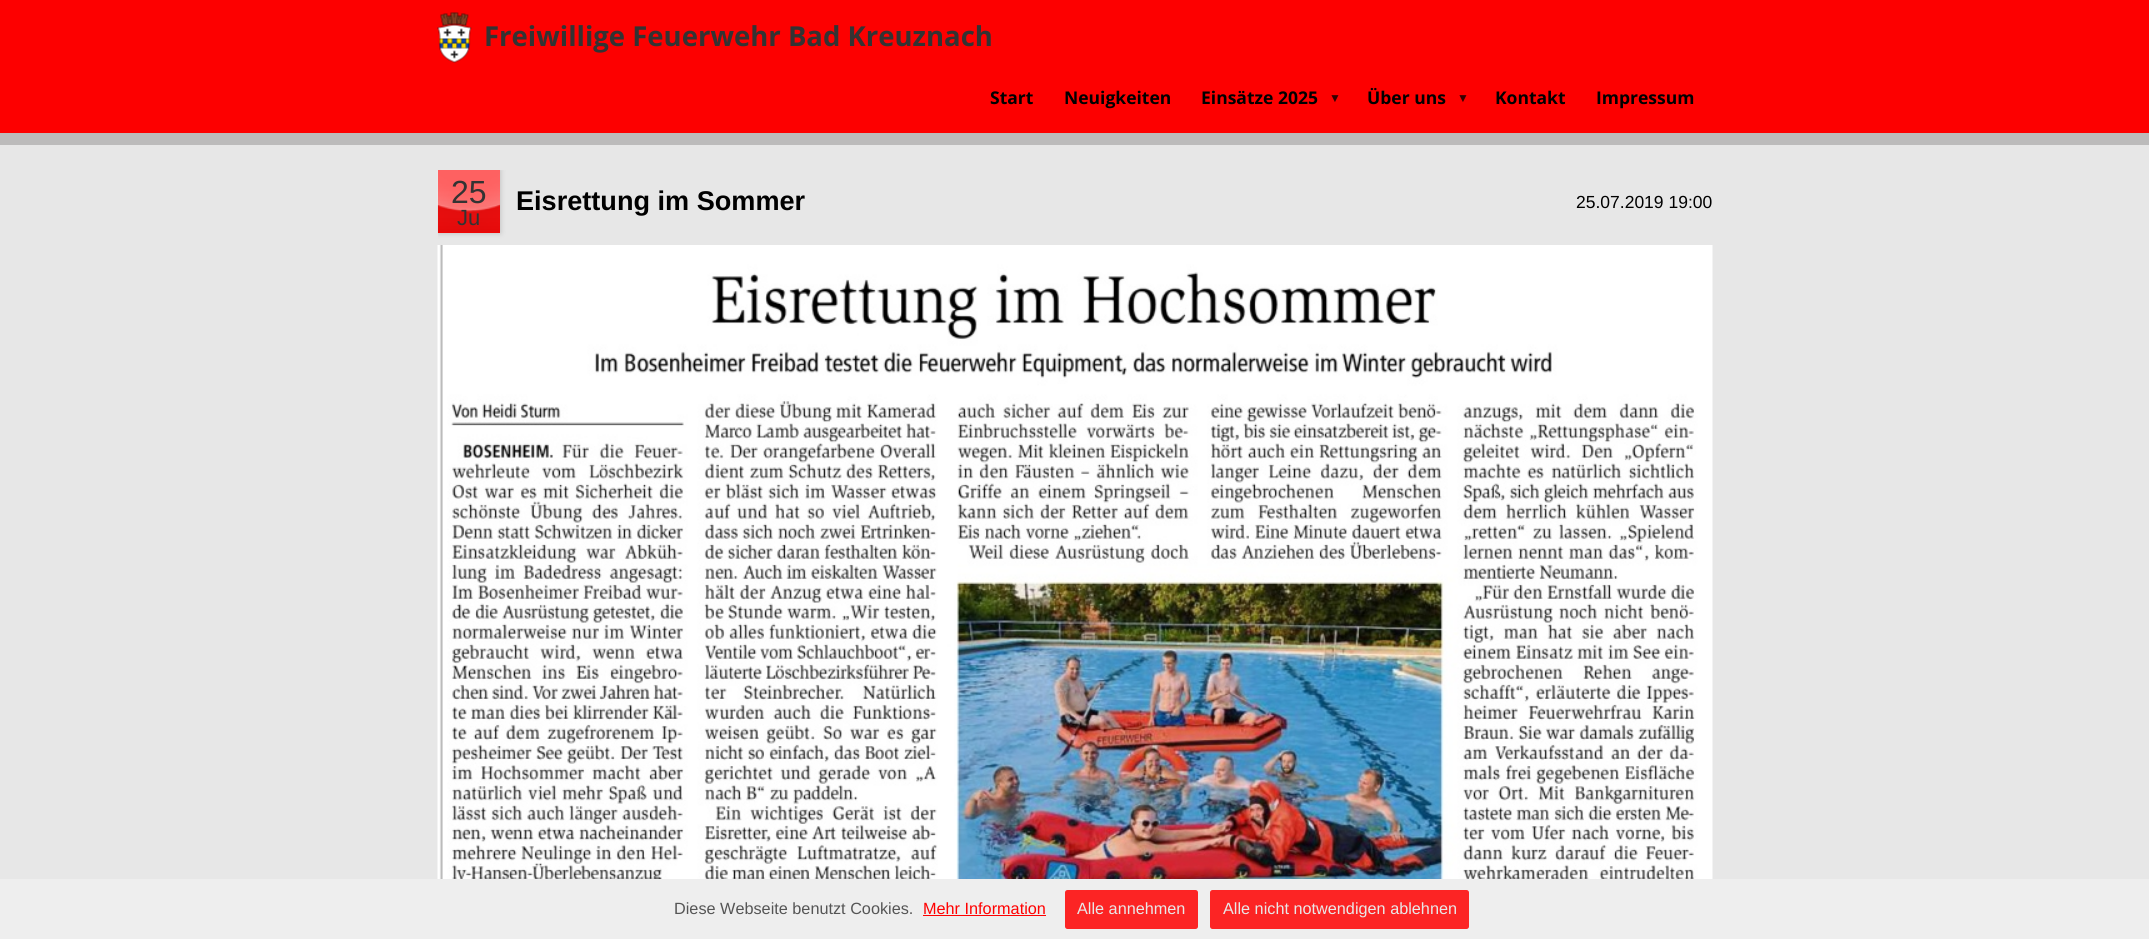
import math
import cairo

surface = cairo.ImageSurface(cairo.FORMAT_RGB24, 2149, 939)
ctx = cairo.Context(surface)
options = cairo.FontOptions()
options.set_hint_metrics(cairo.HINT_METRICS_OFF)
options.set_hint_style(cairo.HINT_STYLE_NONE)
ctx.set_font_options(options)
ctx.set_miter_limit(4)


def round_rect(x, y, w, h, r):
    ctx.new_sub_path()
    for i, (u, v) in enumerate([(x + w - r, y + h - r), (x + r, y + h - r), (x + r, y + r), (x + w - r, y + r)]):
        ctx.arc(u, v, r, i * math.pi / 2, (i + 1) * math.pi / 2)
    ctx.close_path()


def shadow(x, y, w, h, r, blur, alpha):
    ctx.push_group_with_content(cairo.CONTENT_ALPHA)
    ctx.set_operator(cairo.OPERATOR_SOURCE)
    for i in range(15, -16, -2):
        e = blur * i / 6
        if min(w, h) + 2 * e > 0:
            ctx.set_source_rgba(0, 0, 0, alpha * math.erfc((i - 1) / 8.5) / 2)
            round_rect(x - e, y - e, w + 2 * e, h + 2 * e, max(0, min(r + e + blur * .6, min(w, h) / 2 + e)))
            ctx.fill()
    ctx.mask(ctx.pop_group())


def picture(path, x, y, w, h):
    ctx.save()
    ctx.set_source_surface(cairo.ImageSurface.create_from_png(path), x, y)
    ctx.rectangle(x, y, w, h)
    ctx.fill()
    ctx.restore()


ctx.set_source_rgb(0.906, 0.906, 0.906)
ctx.paint()
ctx.set_source_rgb(0.992, 0, 0)
ctx.rectangle(0, 0, 2149, 133)
ctx.fill()
picture("img1.png", 437, 12, 35, 51)
ctx.select_font_face("Open Sans", cairo.FONT_SLANT_NORMAL, cairo.FONT_WEIGHT_BOLD)
ctx.set_font_size(27.5)
ctx.set_source_rgb(0.2, 0.2, 0.2)
ctx.move_to(484, 46)
ctx.show_text("Freiwillige Feuerwehr Bad Kreuznach")
ctx.set_font_size(17.5)
ctx.set_source_rgb(0, 0, 0)
ctx.move_to(990, 104)
ctx.show_text("Start")
ctx.move_to(1064, 104)
ctx.show_text("Neuigkeiten")
ctx.move_to(1201, 104)
ctx.show_text("Einsätze 2025")
ctx.select_font_face("Liberation Sans", cairo.FONT_SLANT_NORMAL, cairo.FONT_WEIGHT_BOLD)
ctx.set_font_size(12)
ctx.set_source_rgb(0.2, 0, 0)
ctx.move_to(1329, 102)
ctx.show_text("▼")
ctx.select_font_face("Open Sans", cairo.FONT_SLANT_NORMAL, cairo.FONT_WEIGHT_BOLD)
ctx.set_font_size(17.5)
ctx.set_source_rgb(0, 0, 0)
ctx.move_to(1367, 104)
ctx.show_text("Über uns")
ctx.select_font_face("Liberation Sans", cairo.FONT_SLANT_NORMAL, cairo.FONT_WEIGHT_BOLD)
ctx.set_font_size(12)
ctx.set_source_rgb(0.2, 0, 0)
ctx.move_to(1457, 102)
ctx.show_text("▼")
ctx.select_font_face("Open Sans", cairo.FONT_SLANT_NORMAL, cairo.FONT_WEIGHT_BOLD)
ctx.set_font_size(17.5)
ctx.set_source_rgb(0, 0, 0)
ctx.move_to(1495, 104)
ctx.show_text("Kontakt")
ctx.move_to(1596, 104)
ctx.show_text("Impressum")
ctx.set_source_rgb(0.737, 0.733, 0.733)
ctx.rectangle(0, 133, 2149, 12)
ctx.fill()
ctx.save()
ctx.rectangle(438, 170, 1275, 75)
ctx.clip()
ctx.set_source_rgb(0, 0, 0)
shadow(438, 170, 62, 63, 0, 3, 0.2)
ctx.restore()
ctx.set_source_rgb(0.992, 0, 0)
ctx.rectangle(438, 170, 62, 63)
ctx.fill()
picture("img2.png", 437, 170, 63, 63)
ctx.select_font_face("Liberation Sans")
ctx.set_font_size(32)
ctx.set_source_rgb(0.2, 0.2, 0.2)
ctx.move_to(451, 203)
ctx.show_text("25")
ctx.set_font_size(22)
ctx.move_to(457, 225)
ctx.show_text("Ju")
ctx.select_font_face("Liberation Sans", cairo.FONT_SLANT_NORMAL, cairo.FONT_WEIGHT_BOLD)
ctx.set_font_size(27.1)
ctx.set_source_rgb(0, 0, 0)
ctx.move_to(516, 210)
ctx.show_text("Eisrettung im Sommer")
ctx.select_font_face("Liberation Sans")
ctx.set_font_size(17.5)
ctx.move_to(1576, 208)
ctx.show_text("25.07.2019 19:00")
picture("img3.png", 437, 245, 1276, 634)
ctx.set_source_rgb(0.933, 0.933, 0.933)
ctx.rectangle(0, 879, 2149, 60)
ctx.fill()
ctx.set_font_size(16.25)
ctx.set_source_rgb(0.333, 0.333, 0.333)
ctx.move_to(674, 914)
ctx.show_text("Diese Webseite benutzt Cookies.")
ctx.set_source_rgb(1, 0, 0)
ctx.move_to(923, 914)
ctx.show_text("Mehr Information")
ctx.rectangle(923, 915, 123, 1)
ctx.fill()
ctx.set_source_rgb(0.988, 0.141, 0.141)
round_rect(1065, 890, 133, 39, 2.5)
ctx.fill()
ctx.set_source_rgb(0.91, 0.91, 0.91)
ctx.move_to(1077, 914)
ctx.show_text("Alle annehmen")
ctx.set_source_rgb(0.988, 0.141, 0.141)
round_rect(1210, 890, 259, 39, 2.5)
ctx.fill()
ctx.set_source_rgb(0.91, 0.91, 0.91)
ctx.move_to(1223, 914)
ctx.show_text("Alle nicht notwendigen ablehnen")
surface.write_to_png("page.png")
